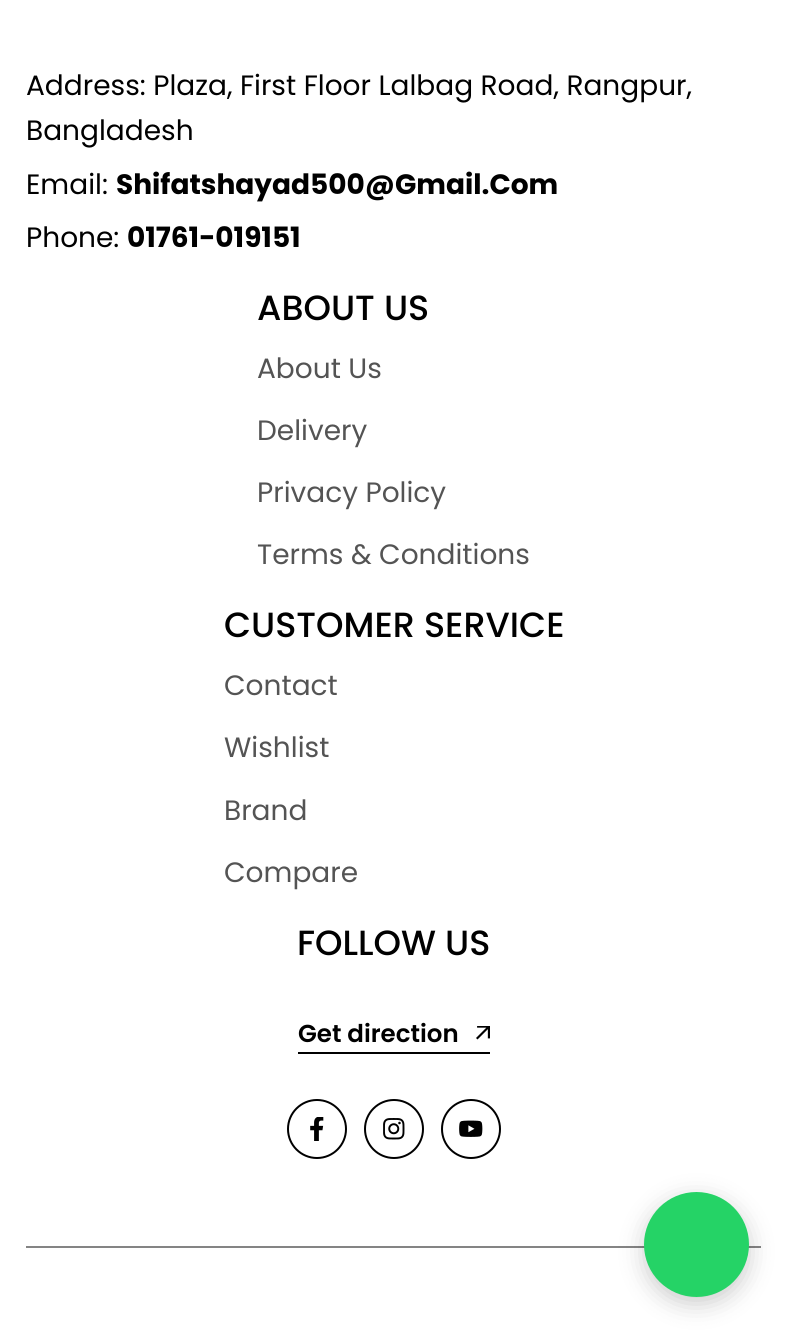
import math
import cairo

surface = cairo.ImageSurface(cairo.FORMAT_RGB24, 787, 1334)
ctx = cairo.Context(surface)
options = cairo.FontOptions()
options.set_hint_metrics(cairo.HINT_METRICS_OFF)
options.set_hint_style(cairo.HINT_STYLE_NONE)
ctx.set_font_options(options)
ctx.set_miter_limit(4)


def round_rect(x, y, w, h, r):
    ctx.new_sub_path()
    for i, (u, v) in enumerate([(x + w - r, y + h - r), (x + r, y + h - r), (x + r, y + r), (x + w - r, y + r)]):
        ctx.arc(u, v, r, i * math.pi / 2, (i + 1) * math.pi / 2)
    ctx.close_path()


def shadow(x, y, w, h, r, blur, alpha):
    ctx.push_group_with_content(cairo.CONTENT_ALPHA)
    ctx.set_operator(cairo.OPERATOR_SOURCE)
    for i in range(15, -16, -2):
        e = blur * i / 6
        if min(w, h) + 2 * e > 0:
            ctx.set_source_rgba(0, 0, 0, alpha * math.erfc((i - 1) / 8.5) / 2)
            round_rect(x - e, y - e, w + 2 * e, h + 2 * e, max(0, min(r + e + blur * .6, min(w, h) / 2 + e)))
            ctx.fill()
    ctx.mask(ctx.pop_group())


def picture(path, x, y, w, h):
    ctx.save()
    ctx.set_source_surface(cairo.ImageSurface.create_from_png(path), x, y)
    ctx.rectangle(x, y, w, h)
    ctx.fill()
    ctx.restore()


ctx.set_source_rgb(1, 1, 1)
ctx.paint()
ctx.select_font_face("Poppins")
ctx.set_font_size(28)
ctx.set_source_rgb(0, 0, 0)
ctx.move_to(26, 95)
ctx.show_text("Address: Plaza, First Floor Lalbag Road, Rangpur,")
ctx.move_to(26, 140)
ctx.show_text("Bangladesh")
ctx.move_to(26, 194)
ctx.show_text("Email:")
ctx.select_font_face("Poppins", cairo.FONT_SLANT_NORMAL, cairo.FONT_WEIGHT_BOLD)
ctx.move_to(116, 194)
ctx.show_text("Shifatshayad500@Gmail.Com")
ctx.select_font_face("Poppins")
ctx.move_to(26, 247)
ctx.show_text("Phone:")
ctx.select_font_face("Poppins", cairo.FONT_SLANT_NORMAL, cairo.FONT_WEIGHT_BOLD)
ctx.move_to(127, 247)
ctx.show_text("01761-019151")
ctx.select_font_face("Poppins Medium")
ctx.set_font_size(35)
ctx.move_to(257, 320)
ctx.show_text("ABOUT US")
ctx.select_font_face("Poppins")
ctx.set_font_size(28)
ctx.set_source_rgb(0.329, 0.329, 0.329)
ctx.move_to(257, 378)
ctx.show_text("About Us")
ctx.move_to(257, 440)
ctx.show_text("Delivery")
ctx.move_to(257, 502)
ctx.show_text("Privacy Policy")
ctx.move_to(257, 564)
ctx.show_text("Terms & Conditions")
ctx.select_font_face("Poppins Medium")
ctx.set_font_size(35)
ctx.set_source_rgb(0, 0, 0)
ctx.move_to(224, 637)
ctx.show_text("CUSTOMER SERVICE")
ctx.select_font_face("Poppins")
ctx.set_font_size(28)
ctx.set_source_rgb(0.329, 0.329, 0.329)
ctx.move_to(224, 695)
ctx.show_text("Contact")
ctx.move_to(224, 757)
ctx.show_text("Wishlist")
ctx.move_to(224, 820)
ctx.show_text("Brand")
ctx.move_to(224, 882)
ctx.show_text("Compare")
ctx.select_font_face("Poppins Medium")
ctx.set_font_size(35)
ctx.set_source_rgb(0, 0, 0)
ctx.move_to(297, 955)
ctx.show_text("FOLLOW US")
ctx.rectangle(298, 1052, 192, 2)
ctx.fill()
ctx.select_font_face("Poppins SemiBold")
ctx.set_font_size(24.5)
ctx.move_to(298, 1042)
ctx.show_text("Get direction")
picture("img1.png", 476, 1026, 14, 14)
ctx.arc(317, 1129, 29, 0, 2 * math.pi)
ctx.stroke()
picture("img2.png", 310, 1117, 14, 24)
ctx.arc(394, 1129, 29, 0, 2 * math.pi)
ctx.stroke()
picture("img3.png", 383, 1118, 22, 22)
ctx.arc(471, 1129, 29, 0, 2 * math.pi)
ctx.stroke()
picture("img4.png", 459, 1120, 24, 17)
ctx.set_source_rgb(0.518, 0.518, 0.518)
ctx.rectangle(26, 1246, 735, 2)
ctx.fill()
ctx.set_source_rgb(0, 0, 0)
shadow(644, 1199, 105, 105, 52.5, 12, 0.2)
ctx.set_source_rgb(0.145, 0.827, 0.4)
ctx.arc(696.5, 1244.5, 52.5, 0, 2 * math.pi)
ctx.fill()
surface.write_to_png("page.png")
